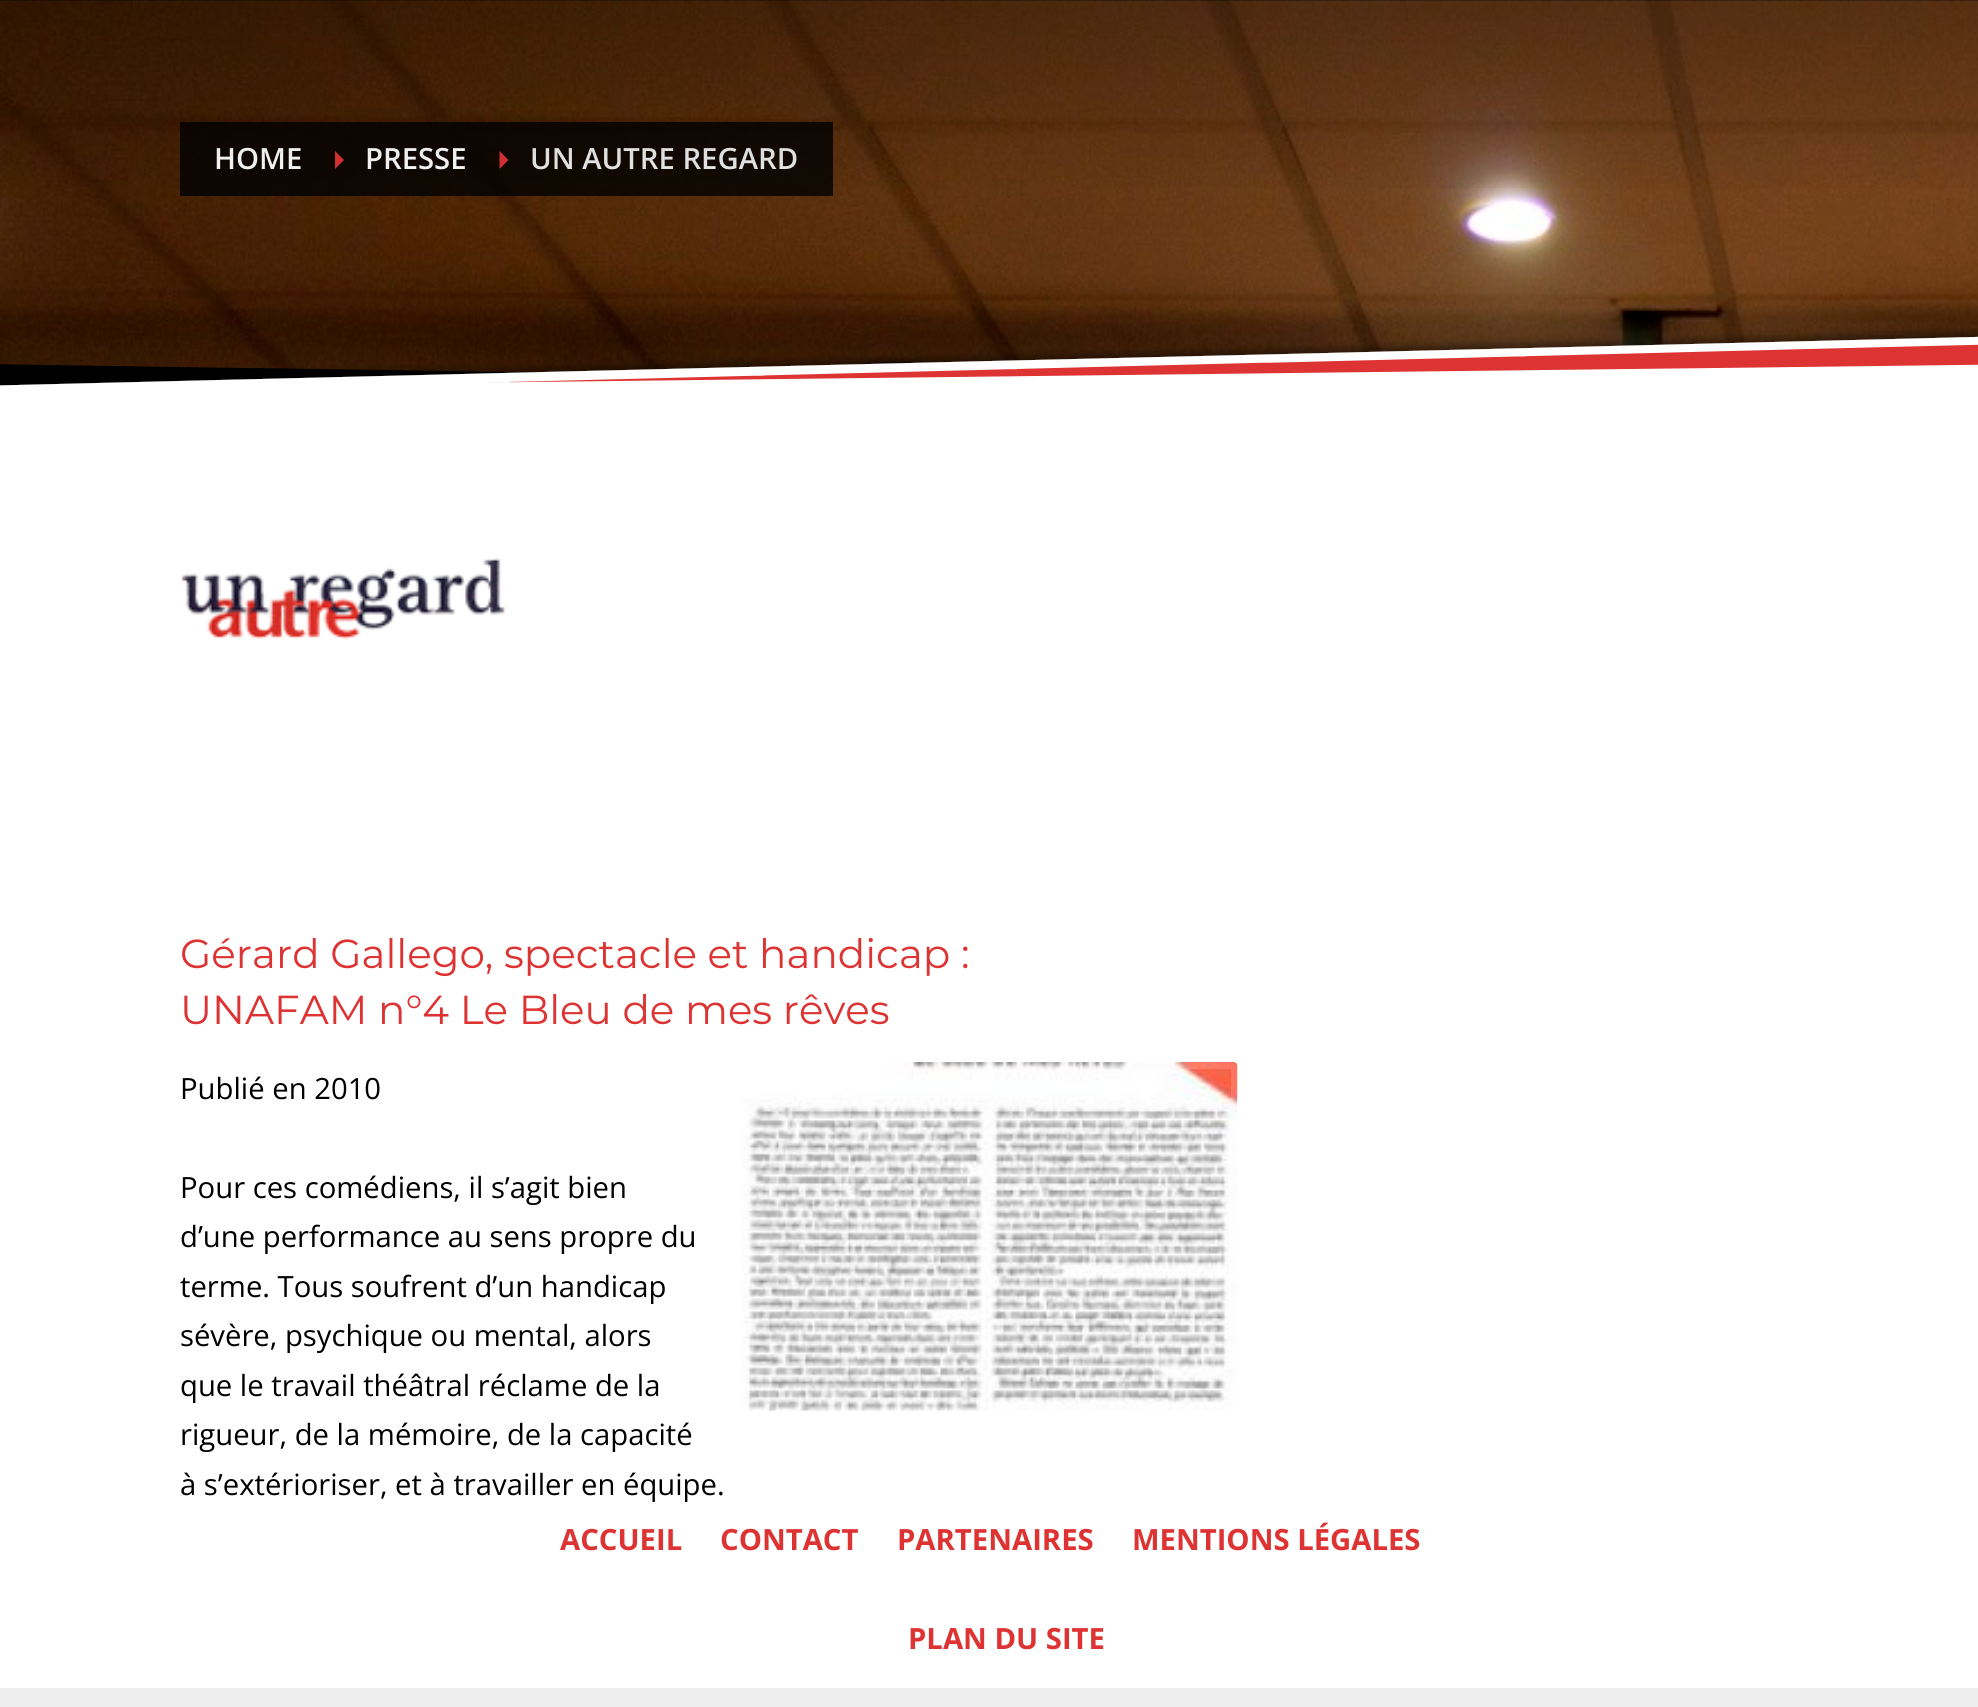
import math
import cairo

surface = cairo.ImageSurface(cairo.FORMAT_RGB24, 1978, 1707)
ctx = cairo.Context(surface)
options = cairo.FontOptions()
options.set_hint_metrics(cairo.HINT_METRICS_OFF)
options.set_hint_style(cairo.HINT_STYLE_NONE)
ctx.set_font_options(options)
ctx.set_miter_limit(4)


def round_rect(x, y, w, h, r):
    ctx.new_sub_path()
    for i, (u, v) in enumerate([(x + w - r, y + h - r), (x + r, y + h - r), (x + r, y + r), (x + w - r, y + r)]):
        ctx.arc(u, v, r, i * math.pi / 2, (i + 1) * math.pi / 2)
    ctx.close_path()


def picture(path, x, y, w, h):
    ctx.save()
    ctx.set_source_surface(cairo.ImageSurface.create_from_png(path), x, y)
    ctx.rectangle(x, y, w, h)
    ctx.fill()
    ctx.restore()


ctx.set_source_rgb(1, 1, 1)
ctx.paint()
picture("img1.png", 0, 0, 1978, 373)
ctx.set_source_rgba(0, 0, 0, 0.8)
ctx.rectangle(180, 122, 133, 74)
ctx.fill()
ctx.select_font_face("Open Sans SemiBold")
ctx.set_font_size(29.25)
ctx.set_source_rgb(1, 1, 1)
ctx.move_to(214, 169)
ctx.show_text("HOME")
ctx.set_source_rgba(0, 0, 0, 0.8)
ctx.rectangle(313, 122, 164, 74)
ctx.fill()
ctx.set_source_rgb(0.867, 0.2, 0.2)
ctx.new_path()
ctx.move_to(335, 169)
ctx.line_to(335, 151)
ctx.line_to(344, 160)
ctx.close_path()
ctx.fill()
ctx.set_source_rgb(1, 1, 1)
ctx.move_to(365, 169)
ctx.show_text("PRESSE")
ctx.set_source_rgba(0, 0, 0, 0.8)
ctx.rectangle(477, 122, 356, 74)
ctx.fill()
ctx.set_source_rgb(0.867, 0.2, 0.2)
ctx.new_path()
ctx.move_to(499.5, 169)
ctx.line_to(499.5, 151)
ctx.line_to(508.5, 160)
ctx.close_path()
ctx.fill()
ctx.set_source_rgb(0.933, 0.933, 0.933)
ctx.move_to(530, 169)
ctx.show_text("UN AUTRE REGARD")
gradient = cairo.LinearGradient(990, -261, 990, 205)
gradient.add_color_stop_rgba(0, 0, 0, 0, 0.6)
gradient.add_color_stop_rgba(1, 0, 0, 0, 0)
ctx.set_source(gradient)
ctx.rectangle(0, 0, 1978, 188)
ctx.fill()
picture("img2.png", 0, 328, 1978, 86)
picture("img3.png", 181, 557, 324, 83)
ctx.select_font_face("Montserrat")
ctx.set_font_size(40.5)
ctx.set_source_rgb(0.867, 0.2, 0.2)
ctx.move_to(180, 968)
ctx.show_text("Gérard Gallego, spectacle et handicap :")
ctx.move_to(180, 1024)
ctx.show_text("UNAFAM n°4 Le Bleu de mes rêves")
ctx.select_font_face("Open Sans")
ctx.set_font_size(29.25)
ctx.set_source_rgb(0, 0, 0)
ctx.move_to(180, 1099)
ctx.show_text("Publié en 2010")
ctx.move_to(180, 1198)
ctx.show_text("Pour ces comédiens, il s’agit bien")
ctx.move_to(180, 1247)
ctx.show_text("d’une performance au sens propre du")
ctx.move_to(180, 1297)
ctx.show_text("terme. Tous soufrent d’un handicap")
ctx.move_to(180, 1346)
ctx.show_text("sévère, psychique ou mental, alors")
ctx.move_to(180, 1396)
ctx.show_text("que le travail théâtral réclame de la")
ctx.move_to(180, 1445)
ctx.show_text("rigueur, de la mémoire, de la capacité")
ctx.move_to(180, 1495)
ctx.show_text("à s’extérioriser, et à travailler en équipe.")
picture("img4.png", 743, 1062, 495, 349)
round_rect(746.5, 1065.5, 488, 342, 3.5)
ctx.set_source_rgba(1, 1, 1, 0.15)
ctx.set_line_width(7)
ctx.stroke()
ctx.set_source_rgb(0.929, 0.929, 0.929)
ctx.rectangle(0, 1688, 1978, 19)
ctx.fill()
ctx.select_font_face("Open Sans", cairo.FONT_SLANT_NORMAL, cairo.FONT_WEIGHT_BOLD)
ctx.set_source_rgb(0.867, 0.2, 0.2)
ctx.move_to(560, 1550)
ctx.show_text("ACCUEIL")
ctx.move_to(720, 1550)
ctx.show_text("CONTACT")
ctx.move_to(897, 1550)
ctx.show_text("PARTENAIRES")
ctx.move_to(1132, 1550)
ctx.show_text("MENTIONS LÉGALES")
ctx.move_to(908, 1649)
ctx.show_text("PLAN DU SITE")
surface.write_to_png("page.png")
